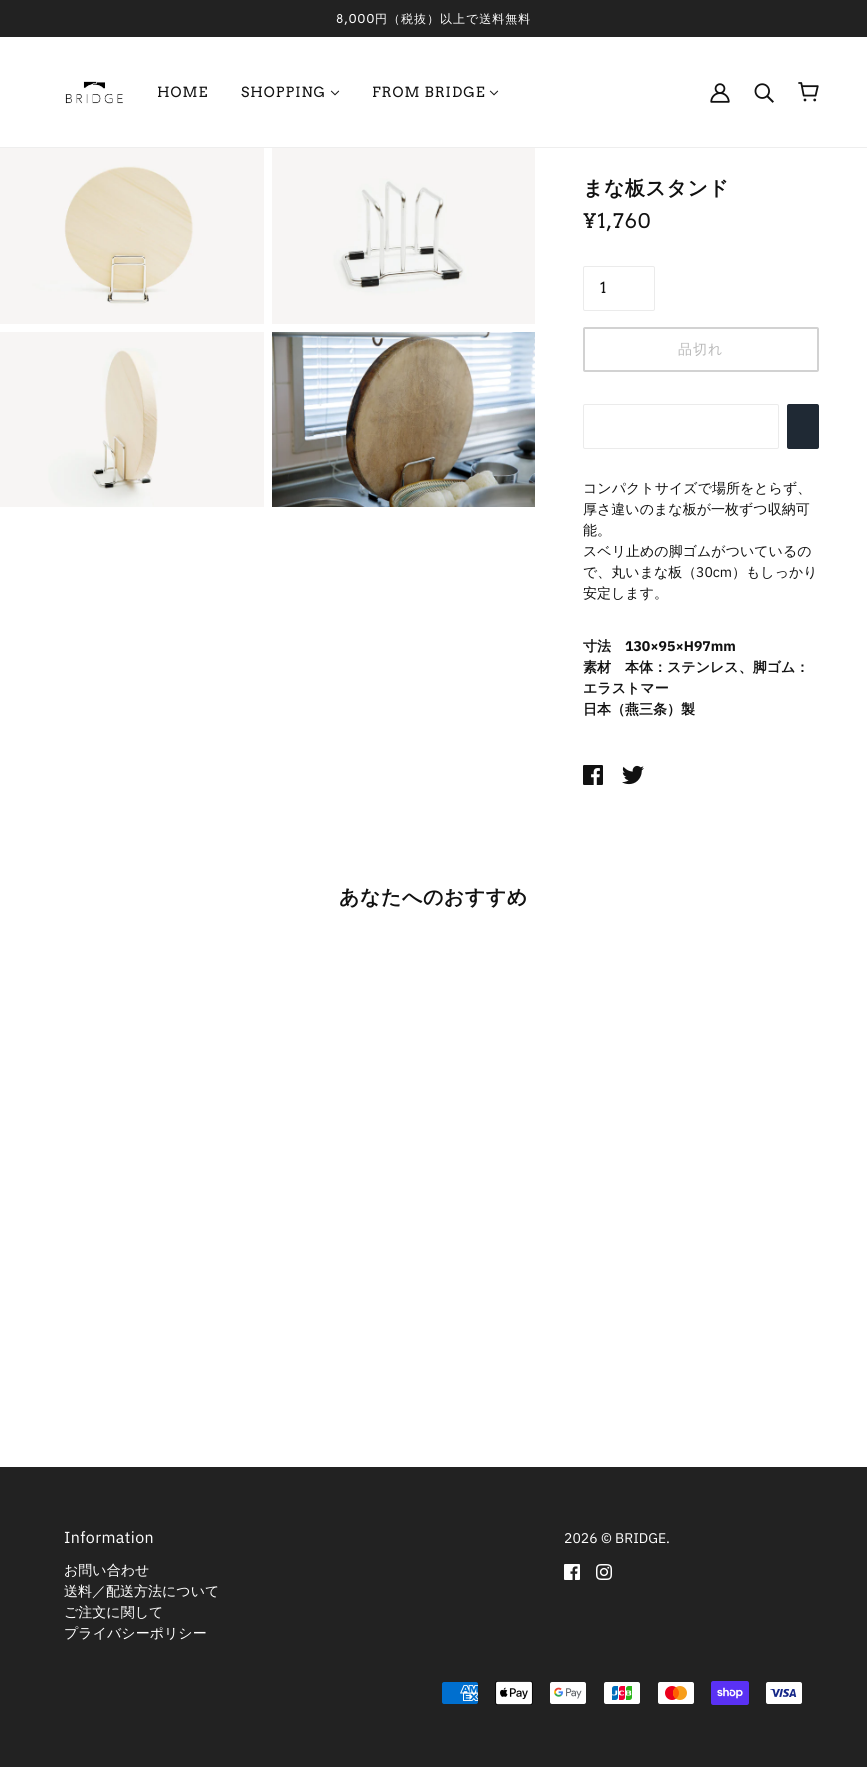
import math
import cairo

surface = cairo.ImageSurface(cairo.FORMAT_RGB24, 867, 1767)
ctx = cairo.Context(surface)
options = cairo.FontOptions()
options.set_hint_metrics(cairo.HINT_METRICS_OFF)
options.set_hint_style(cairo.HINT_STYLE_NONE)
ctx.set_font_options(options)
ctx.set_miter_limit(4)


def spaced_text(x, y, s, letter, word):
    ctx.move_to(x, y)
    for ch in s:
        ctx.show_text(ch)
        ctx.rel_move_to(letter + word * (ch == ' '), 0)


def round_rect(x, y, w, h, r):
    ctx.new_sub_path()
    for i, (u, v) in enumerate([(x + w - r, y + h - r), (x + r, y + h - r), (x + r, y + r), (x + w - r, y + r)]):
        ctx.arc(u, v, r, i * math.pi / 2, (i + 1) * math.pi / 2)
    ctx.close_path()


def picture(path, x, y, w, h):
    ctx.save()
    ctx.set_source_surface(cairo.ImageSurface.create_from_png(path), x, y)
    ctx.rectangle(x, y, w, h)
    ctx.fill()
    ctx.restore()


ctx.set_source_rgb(1, 1, 1)
ctx.paint()
ctx.set_source_rgb(0.133, 0.133, 0.133)
ctx.rectangle(0, 0, 867, 37)
ctx.fill()
ctx.select_font_face("Arvo")
ctx.set_font_size(12)
ctx.set_source_rgb(1, 1, 1)
spaced_text(336, 23, "8,000", 1, 0)
ctx.select_font_face("WenQuanYi Zen Hei Medium")
spaced_text(375, 23, "円（税抜）以上で送料無料", 1, 0)
ctx.set_source_rgb(0.933, 0.933, 0.933)
ctx.rectangle(0, 147, 867, 1)
ctx.fill()
picture("img1.png", 65, 81, 58, 23)
ctx.select_font_face("Arvo")
ctx.set_font_size(14)
ctx.set_source_rgb(0.067, 0.067, 0.067)
spaced_text(157, 97, "HOME", 1, 0)
spaced_text(241, 97, "SHOPPING", 1, 0)
picture("img2.png", 330, 90, 10, 6)
spaced_text(372, 97, "FROM BRIDGE", 1, 0)
picture("img2.png", 489, 90, 10, 6)
picture("img3.png", 710, 83, 20, 20)
picture("img4.png", 754, 83, 20, 20)
picture("img5.png", 798, 82, 21, 20)
picture("img6.png", 0, 148, 264, 176)
picture("img7.png", 272, 148, 263, 176)
picture("img8.png", 0, 332, 264, 175)
picture("img9.png", 272, 332, 263, 175)
ctx.select_font_face("WenQuanYi Zen Hei", cairo.FONT_SLANT_NORMAL, cairo.FONT_WEIGHT_BOLD)
ctx.set_font_size(20)
spaced_text(583, 195, "まな板スタンド", 0.5, 0)
ctx.select_font_face("Arvo")
spaced_text(583, 228, "¥1,760", 1, 0)
round_rect(583.5, 266.5, 71, 44, 1.5)
ctx.set_source_rgb(0.918, 0.918, 0.918)
ctx.set_line_width(1)
ctx.stroke()
ctx.set_font_size(15)
ctx.set_source_rgb(0.067, 0.067, 0.067)
ctx.move_to(600, 293)
ctx.show_text("1")
round_rect(584, 328, 234, 43, 1)
ctx.set_source_rgb(0.824, 0.824, 0.824)
ctx.set_line_width(2)
ctx.stroke()
ctx.select_font_face("WenQuanYi Zen Hei Medium")
ctx.set_font_size(14)
ctx.set_source_rgb(0.725, 0.725, 0.725)
spaced_text(678, 354, "品切れ", 1, 0)
round_rect(583.5, 404.5, 195, 44, 1.5)
ctx.set_source_rgb(0.918, 0.918, 0.918)
ctx.set_line_width(1)
ctx.stroke()
ctx.set_source_rgb(0.122, 0.161, 0.204)
round_rect(787, 404, 32, 45, 2)
ctx.fill()
ctx.set_source_rgb(0.067, 0.067, 0.067)
ctx.move_to(583, 493)
ctx.show_text("コンパクトサイズで場所をとらず、")
ctx.move_to(583, 514)
ctx.show_text("厚さ違いのまな板が一枚ずつ収納可")
ctx.move_to(583, 535)
ctx.show_text("能。")
ctx.move_to(583, 556)
ctx.show_text("スベリ止めの脚ゴムがついているの")
ctx.move_to(583, 577)
ctx.show_text("で、丸いまな板（")
ctx.select_font_face("IBM Plex Sans")
ctx.move_to(696, 577)
ctx.show_text("30cm")
ctx.select_font_face("WenQuanYi Zen Hei Medium")
ctx.move_to(732, 577)
ctx.show_text("）もしっかり")
ctx.move_to(583, 598)
ctx.show_text("安定します。")
ctx.select_font_face("WenQuanYi Zen Hei", cairo.FONT_SLANT_NORMAL, cairo.FONT_WEIGHT_BOLD)
ctx.move_to(583, 651)
ctx.show_text("寸法")
ctx.select_font_face("IBM Plex Sans", cairo.FONT_SLANT_NORMAL, cairo.FONT_WEIGHT_BOLD)
ctx.move_to(625, 651)
ctx.show_text("130×95×H97mm")
ctx.select_font_face("WenQuanYi Zen Hei", cairo.FONT_SLANT_NORMAL, cairo.FONT_WEIGHT_BOLD)
ctx.move_to(583, 672)
ctx.show_text("素材　本体：ステンレス、脚ゴム：")
ctx.move_to(583, 693)
ctx.show_text("エラストマー")
ctx.move_to(583, 714)
ctx.show_text("日本（燕三条）製")
picture("img10.png", 583, 765, 20, 20)
picture("img11.png", 622, 765, 22, 20)
ctx.set_font_size(20)
spaced_text(339, 904, "あなたへのおすすめ", 0.5, 0)
ctx.set_source_rgb(0.133, 0.133, 0.133)
ctx.rectangle(0, 1467, 867, 300)
ctx.fill()
ctx.select_font_face("IBM Plex Sans")
ctx.set_font_size(16)
ctx.set_source_rgb(1, 1, 1)
spaced_text(64, 1543, "Information", 0.4, 0)
ctx.select_font_face("WenQuanYi Zen Hei Medium")
ctx.set_font_size(14)
ctx.move_to(64, 1575)
ctx.show_text("お問い合わせ")
ctx.move_to(64, 1596)
ctx.show_text("送料／配送方法について")
ctx.move_to(64, 1617)
ctx.show_text("ご注文に関して")
ctx.move_to(64, 1638)
ctx.show_text("プライバシーポリシー")
ctx.select_font_face("IBM Plex Sans")
ctx.move_to(564, 1543)
ctx.show_text("2026 © BRIDGE.")
picture("img12.png", 564, 1564, 16, 16)
picture("img13.png", 596, 1564, 16, 16)
picture("img14.png", 442, 1682, 36, 22)
picture("img15.png", 495, 1681, 38, 24)
picture("img16.png", 550, 1682, 36, 22)
picture("img17.png", 604, 1682, 36, 22)
picture("img18.png", 658, 1682, 36, 22)
picture("img19.png", 711, 1681, 38, 24)
picture("img20.png", 766, 1682, 36, 22)
surface.write_to_png("page.png")
